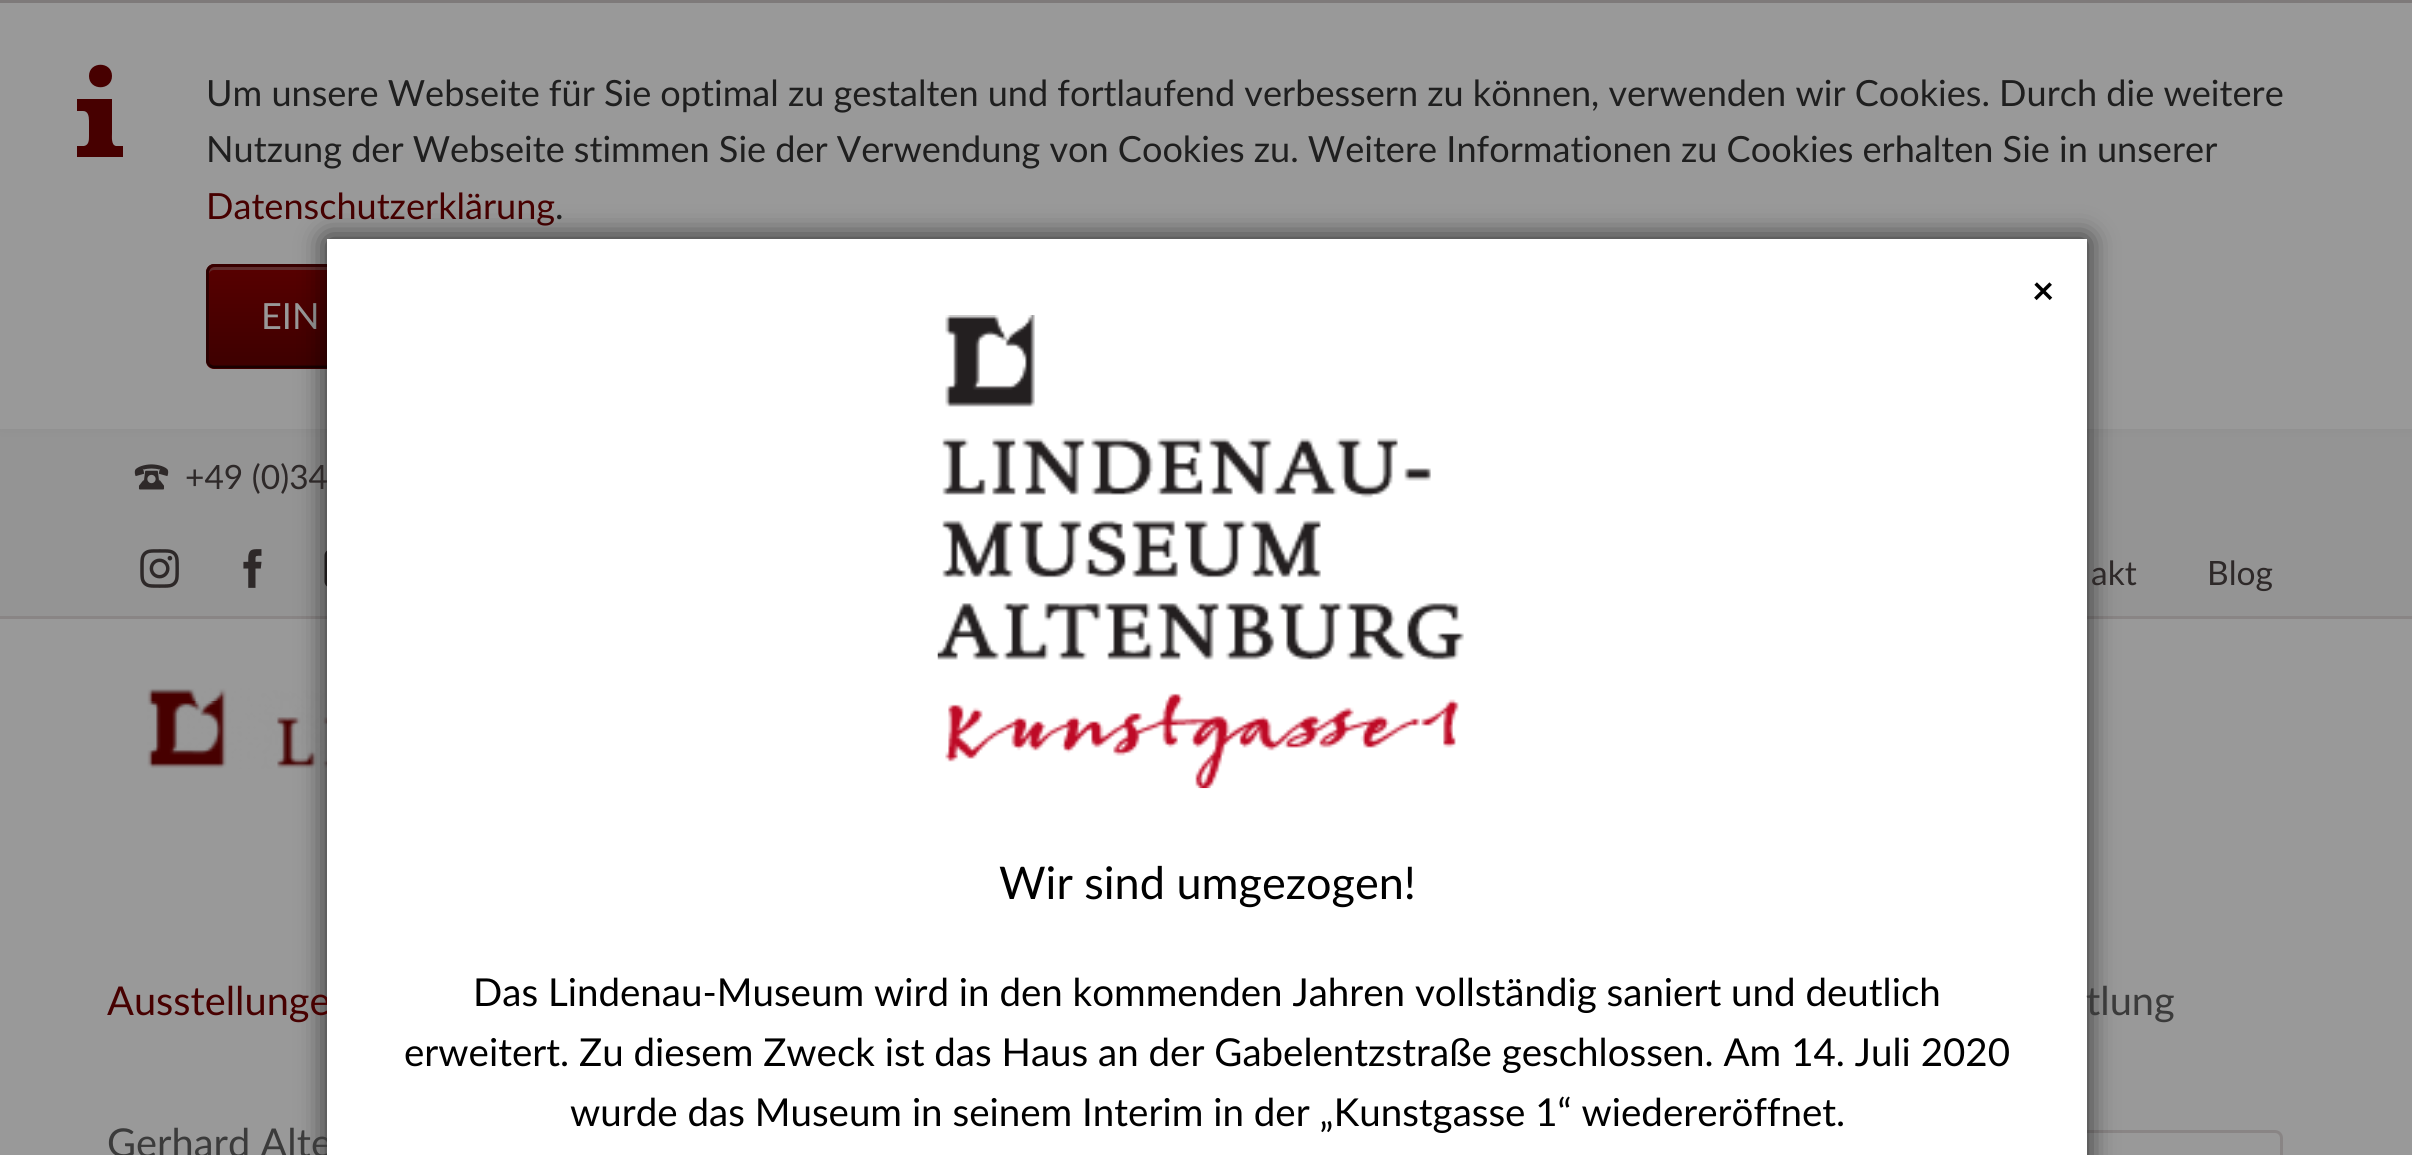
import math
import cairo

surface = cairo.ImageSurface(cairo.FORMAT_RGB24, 2412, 1155)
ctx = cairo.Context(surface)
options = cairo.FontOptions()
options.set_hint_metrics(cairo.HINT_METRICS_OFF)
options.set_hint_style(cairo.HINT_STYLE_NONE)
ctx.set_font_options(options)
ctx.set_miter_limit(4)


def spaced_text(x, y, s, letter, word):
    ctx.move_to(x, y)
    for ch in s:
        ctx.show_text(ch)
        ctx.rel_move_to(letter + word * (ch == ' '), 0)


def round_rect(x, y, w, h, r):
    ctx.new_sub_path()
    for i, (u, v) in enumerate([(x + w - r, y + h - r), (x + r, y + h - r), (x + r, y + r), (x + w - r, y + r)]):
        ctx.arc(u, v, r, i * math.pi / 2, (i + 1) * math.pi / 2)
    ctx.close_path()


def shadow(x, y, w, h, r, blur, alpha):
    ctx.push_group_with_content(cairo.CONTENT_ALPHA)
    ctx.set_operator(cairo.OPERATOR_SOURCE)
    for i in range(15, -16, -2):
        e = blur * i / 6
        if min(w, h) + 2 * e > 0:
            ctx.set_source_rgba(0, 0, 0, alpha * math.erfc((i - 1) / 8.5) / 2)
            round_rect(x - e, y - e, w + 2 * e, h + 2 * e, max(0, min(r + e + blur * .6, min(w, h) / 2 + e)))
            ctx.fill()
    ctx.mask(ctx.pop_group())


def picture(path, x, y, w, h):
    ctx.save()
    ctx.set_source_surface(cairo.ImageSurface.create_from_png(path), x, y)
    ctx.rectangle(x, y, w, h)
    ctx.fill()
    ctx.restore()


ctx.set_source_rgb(0.58, 0.58, 0.58)
ctx.paint()
ctx.set_source_rgb(0, 0, 0)
shadow(0, -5, 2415, 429, 0, 7, 0.1)
ctx.set_source_rgb(0.6, 0.6, 0.6)
ctx.rectangle(0, 3, 2412, 426)
ctx.fill()
ctx.set_source_rgb(0.494, 0.478, 0.478)
ctx.rectangle(0, 0, 2412, 3)
ctx.fill()
ctx.set_source_rgb(0.278, 0, 0)
ctx.new_path()
ctx.move_to(83, 111)
ctx.curve_to(88, 111, 89, 116, 89, 121)
ctx.line_to(89, 136)
ctx.curve_to(89, 140, 89, 145, 84, 146)
ctx.line_to(77, 146)
ctx.line_to(77, 157)
ctx.line_to(123, 157)
ctx.line_to(123, 146)
ctx.line_to(116, 146)
ctx.curve_to(111, 145, 112, 137, 112, 133)
ctx.line_to(112, 99)
ctx.line_to(77, 99)
ctx.line_to(77, 111)
ctx.close_path()
ctx.move_to(89, 76)
ctx.curve_to(89, 61, 112, 61, 112, 76)
ctx.curve_to(112, 91, 89, 91, 89, 76)
ctx.close_path()
ctx.fill()
ctx.select_font_face("Lato")
ctx.set_font_size(36.1)
ctx.set_source_rgb(0.122, 0.122, 0.122)
spaced_text(206, 106, "Um unsere Webseite für Sie optimal zu gestalten und fortlaufend verbessern zu können, verwenden wir Cookies. Durch die weitere", 0, -0.1)
spaced_text(206, 162, "Nutzung der Webseite stimmen Sie der Verwendung von Cookies zu. Weitere Informationen zu Cookies erhalten Sie in unserer", 0, -0.1)
ctx.set_source_rgb(0.278, 0, 0)
ctx.move_to(206, 219)
ctx.show_text("Datenschutzerklärung")
ctx.set_source_rgb(0.122, 0.122, 0.122)
ctx.move_to(555, 219)
ctx.show_text(".")
ctx.save()
round_rect(206, 264, 405, 105, 8)
ctx.clip()
gradient = cairo.LinearGradient(408, 168, 408, 267)
gradient.add_color_stop_rgba(0, 0.341, 0, 0, 1)
gradient.add_color_stop_rgba(1, 0.243, 0, 0, 1)
ctx.set_source(gradient)
ctx.rectangle(206, 264, 121, 3)
ctx.fill()
gradient = cairo.LinearGradient(408, 267, 408, 366)
gradient.add_color_stop_rgba(0, 0.341, 0, 0, 1)
gradient.add_color_stop_rgba(1, 0.243, 0, 0, 1)
ctx.set_source(gradient)
ctx.rectangle(206, 267, 121, 99)
ctx.fill()
gradient = cairo.LinearGradient(408, 366, 408, 465)
gradient.add_color_stop_rgba(0, 0.341, 0, 0, 1)
gradient.add_color_stop_rgba(1, 0.243, 0, 0, 1)
ctx.set_source(gradient)
ctx.rectangle(206, 366, 121, 3)
ctx.fill()
ctx.restore()
ctx.set_source_rgb(0.373, 0.18, 0.18)
ctx.new_path()
ctx.move_to(214, 270)
ctx.line_to(602, 270)
ctx.curve_to(605, 270, 608, 272, 608, 275)
ctx.curve_to(608, 271, 607, 267, 602, 267)
ctx.line_to(215, 267)
ctx.curve_to(210, 267, 209, 271, 209, 275)
ctx.curve_to(209, 272, 211, 270, 214, 270)
ctx.close_path()
ctx.fill()
ctx.new_path()
ctx.move_to(209.5, 267.5)
ctx.curve_to(211, 266, 212.5, 265.5, 214.5, 265.5)
ctx.line_to(602, 265.5)
ctx.curve_to(604, 265.5, 606, 266, 607, 267.5)
ctx.set_source_rgb(0.22, 0, 0)
ctx.set_line_width(2.8)
ctx.stroke()
ctx.new_path()
ctx.move_to(607, 365)
ctx.curve_to(606, 366.5, 604, 367, 602, 367)
ctx.line_to(214.5, 367)
ctx.curve_to(212.5, 367, 211, 366.5, 209.5, 365)
ctx.set_source_rgb(0.102, 0, 0)
ctx.stroke()
ctx.new_path()
ctx.move_to(209.5, 365)
ctx.curve_to(208.5, 364, 207.5, 362, 207.5, 360)
ctx.line_to(207.5, 272)
ctx.curve_to(207.5, 270.5, 208.5, 268.5, 209.5, 267.5)
ctx.set_source_rgb(0.161, 0, 0)
ctx.stroke()
ctx.set_source_rgb(0.6, 0.6, 0.6)
ctx.move_to(261, 329)
ctx.show_text("EIN")
ctx.set_source_rgb(0.537, 0.522, 0.522)
ctx.rectangle(0, 616, 2412, 3)
ctx.fill()
picture("img5.png", 324, 550, 3, 37)
ctx.set_source_rgb(0.6, 0.6, 0.6)
ctx.rectangle(0, 619, 2412, 536)
ctx.fill()
picture("img6.png", 147, 688, 180, 81)
round_rect(1791.5, 1131.5, 490, 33, 6.5)
ctx.set_source_rgb(0.537, 0.522, 0.522)
ctx.set_line_width(3)
ctx.stroke()
ctx.set_source_rgb(0, 0, 0)
shadow(327, 239, 1760, 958, 0, 14, 0.75)
ctx.set_font_size(39.75)
ctx.set_source_rgb(0.278, 0, 0)
ctx.move_to(107, 1015)
ctx.show_text("Ausstellunge")
ctx.set_source_rgb(0.231, 0.231, 0.231)
ctx.move_to(107, 1157)
ctx.show_text("Gerhard Alte")
ctx.set_source_rgb(1, 1, 1)
ctx.rectangle(327, 239, 1760, 916)
ctx.fill()
ctx.select_font_face("Lato", cairo.FONT_SLANT_NORMAL, cairo.FONT_WEIGHT_BOLD)
ctx.set_font_size(38.5)
ctx.set_source_rgb(0, 0, 0)
ctx.move_to(2032, 304)
ctx.show_text("×")
picture("img1.png", 937, 315, 527, 474)
ctx.select_font_face("Lato")
ctx.set_font_size(45)
ctx.move_to(999, 899)
ctx.show_text("Wir sind umgezogen!")
ctx.set_font_size(38.5)
ctx.move_to(473, 1006)
ctx.show_text("Das Lindenau-Museum wird in den kommenden Jahren vollständig saniert und deutlich")
ctx.move_to(404, 1066)
ctx.show_text("erweitert. Zu diesem Zweck ist das Haus an der Gabelentzstraße geschlossen. Am 14. Juli 2020")
ctx.move_to(570, 1126)
ctx.show_text("wurde das Museum in seinem Interim in der „Kunstgasse 1“ wiedereröffnet.")
picture("img2.png", 134, 464, 35, 26)
ctx.set_font_size(33.5)
ctx.set_source_rgb(0.18, 0.161, 0.161)
ctx.move_to(185, 489)
ctx.show_text("+49 (0)34")
picture("img3.png", 140, 549, 39, 39)
picture("img4.png", 243, 549, 19, 39)
ctx.move_to(2091, 585)
ctx.show_text("akt")
ctx.move_to(2207, 585)
ctx.show_text("Blog")
ctx.set_font_size(39.75)
ctx.set_source_rgb(0.231, 0.231, 0.231)
ctx.move_to(2086, 1015)
ctx.show_text("tlung")
surface.write_to_png("page.png")
